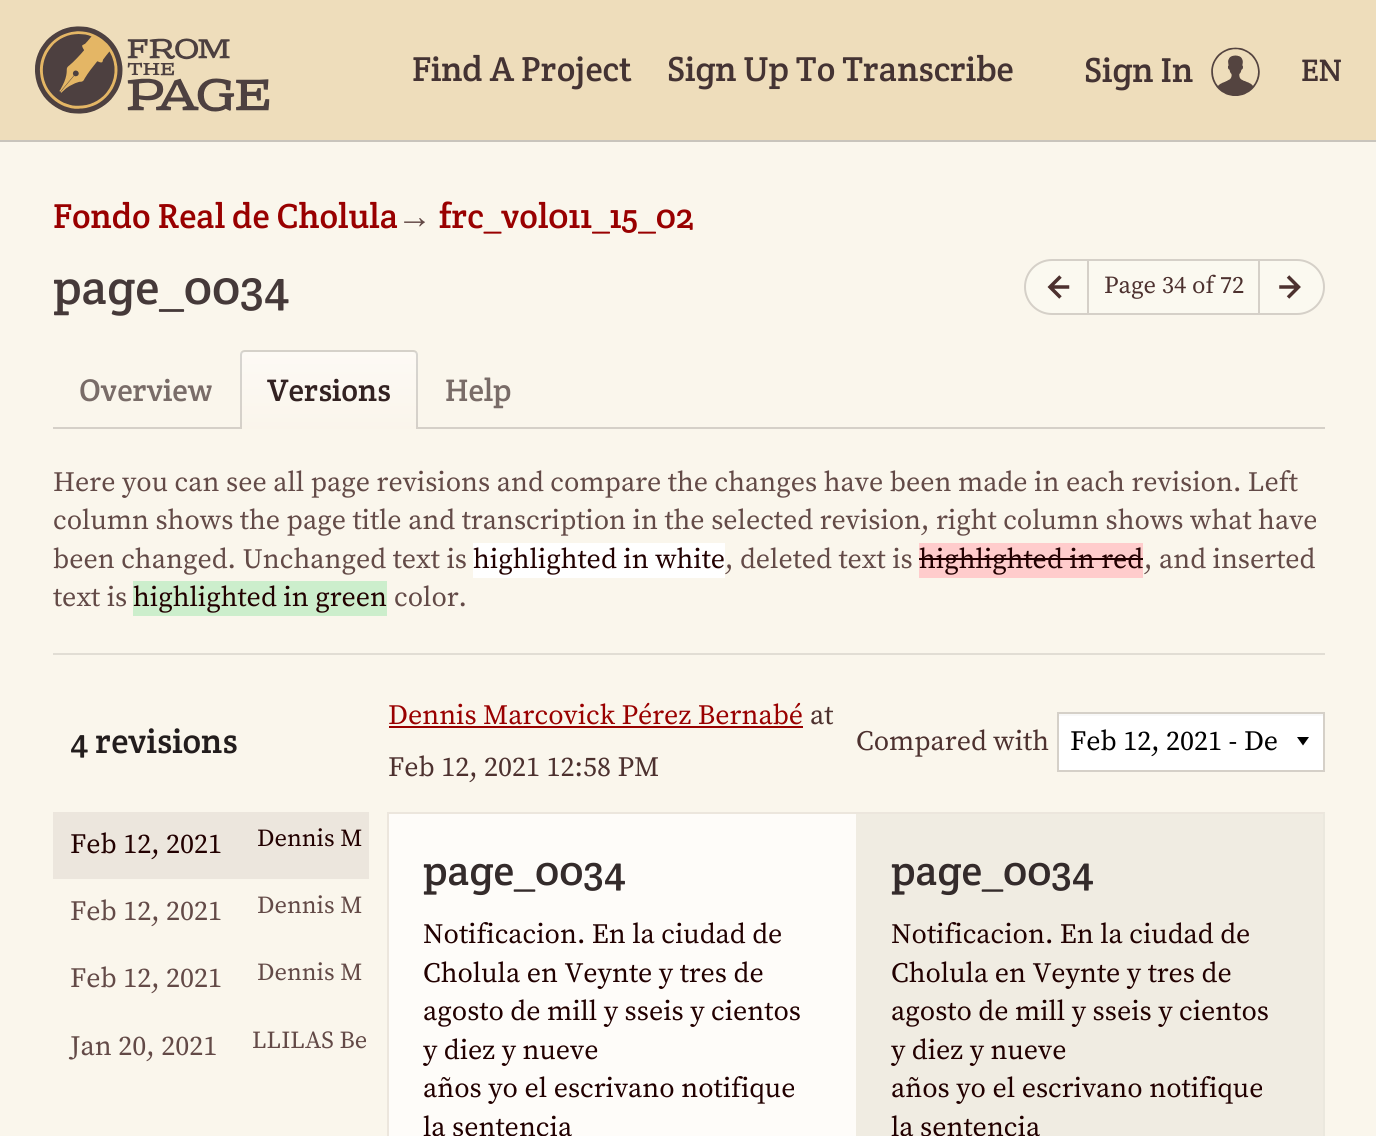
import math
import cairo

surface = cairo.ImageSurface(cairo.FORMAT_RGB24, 1376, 1136)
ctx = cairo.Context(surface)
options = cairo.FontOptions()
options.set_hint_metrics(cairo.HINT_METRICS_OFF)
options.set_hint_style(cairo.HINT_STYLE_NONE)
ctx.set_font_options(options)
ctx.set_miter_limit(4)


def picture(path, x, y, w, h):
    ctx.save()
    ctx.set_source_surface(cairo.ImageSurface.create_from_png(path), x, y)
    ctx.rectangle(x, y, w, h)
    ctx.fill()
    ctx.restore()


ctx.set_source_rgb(0.98, 0.961, 0.922)
ctx.paint()
ctx.set_source_rgb(0.784, 0.769, 0.737)
ctx.rectangle(0, 140, 1376, 2)
ctx.fill()
ctx.set_source_rgb(0.933, 0.867, 0.733)
ctx.rectangle(0, 0, 1376, 140)
ctx.fill()
picture("img1.png", 35, 26, 235, 88)
ctx.select_font_face("Crete Round")
ctx.set_font_size(35)
ctx.set_source_rgb(0.267, 0.2, 0.2)
ctx.move_to(412, 81)
ctx.show_text("Find A Project")
ctx.move_to(667, 81)
ctx.show_text("Sign Up To Transcribe")
ctx.move_to(1084, 82)
ctx.show_text("Sign In")
picture("img2.png", 1211, 47, 49, 49)
ctx.set_font_size(31.5)
ctx.move_to(1301, 81)
ctx.show_text("EN")
ctx.set_font_size(35)
ctx.set_source_rgb(0.6, 0, 0)
ctx.move_to(53, 228)
ctx.show_text("Fondo Real de Cholula")
ctx.select_font_face("Liberation Serif")
ctx.set_source_rgb(0.388, 0.29, 0.278)
ctx.move_to(397, 228)
ctx.show_text("→")
ctx.select_font_face("Crete Round")
ctx.set_source_rgb(0.6, 0, 0)
ctx.move_to(439, 228)
ctx.show_text("frc_vol011_15_02")
ctx.set_font_size(49)
ctx.set_source_rgb(0.271, 0.224, 0.224)
ctx.move_to(53, 304)
ctx.show_text("page_0034")
ctx.set_source_rgb(0.984, 0.973, 0.941)
ctx.new_path()
ctx.move_to(1052, 260)
ctx.line_to(1088, 260)
ctx.line_to(1088, 314)
ctx.line_to(1052, 314)
ctx.curve_to(1037, 314, 1025, 302, 1025, 287)
ctx.curve_to(1025, 272, 1037, 260, 1052, 260)
ctx.close_path()
ctx.fill_preserve()
ctx.set_source_rgb(0.835, 0.816, 0.784)
ctx.stroke()
picture("img3.png", 1047, 275, 23, 24)
ctx.set_source_rgb(0.984, 0.973, 0.941)
ctx.rectangle(1089, 261, 169, 52)
ctx.fill()
ctx.set_source_rgb(0.835, 0.816, 0.784)
ctx.rectangle(1089, 259, 169, 2)
ctx.fill()
ctx.rectangle(1089, 313, 169, 2)
ctx.fill()
ctx.select_font_face("Source Serif Pro")
ctx.set_font_size(24.5)
ctx.set_source_rgb(0.302, 0.192, 0.184)
ctx.move_to(1104, 293)
ctx.show_text("Page 34 of 72")
ctx.set_source_rgb(0.984, 0.973, 0.941)
ctx.new_path()
ctx.move_to(1259, 260)
ctx.line_to(1297, 260)
ctx.curve_to(1312, 260, 1324, 272, 1324, 287)
ctx.curve_to(1324, 302, 1312, 314, 1297, 314)
ctx.line_to(1259, 314)
ctx.close_path()
ctx.fill_preserve()
ctx.set_source_rgb(0.835, 0.816, 0.784)
ctx.stroke()
picture("img4.png", 1279, 275, 22, 24)
ctx.rectangle(53, 427, 1272, 2)
ctx.fill()
ctx.select_font_face("Crete Round")
ctx.set_font_size(31.5)
ctx.set_source_rgb(0.475, 0.424, 0.408)
ctx.move_to(79, 401)
ctx.show_text("Overview")
ctx.save()
ctx.new_path()
ctx.move_to(245, 350)
ctx.line_to(413, 350)
ctx.curve_to(416, 350, 418, 352, 418, 355)
ctx.line_to(418, 429)
ctx.line_to(240, 429)
ctx.line_to(240, 355)
ctx.curve_to(240, 352, 242, 350, 245, 350)
ctx.close_path()
ctx.clip()
gradient = cairo.LinearGradient(329, 352, 329, 429)
gradient.add_color_stop_rgba(0, 0.992, 0.98, 0.961, 1)
gradient.add_color_stop_rgba(1, 0.98, 0.961, 0.922, 1)
ctx.set_source(gradient)
ctx.rectangle(240, 352, 178, 77)
ctx.fill()
ctx.restore()
ctx.set_source_rgba(0, 0, 0, 0.15)
ctx.set_fill_rule(cairo.FILL_RULE_EVEN_ODD)
ctx.new_path()
ctx.move_to(245, 350)
ctx.line_to(413, 350)
ctx.curve_to(416, 350, 418, 352, 418, 355)
ctx.line_to(418, 429)
ctx.line_to(240, 429)
ctx.line_to(240, 355)
ctx.curve_to(240, 352, 242, 350, 245, 350)
ctx.close_path()
ctx.move_to(245, 352)
ctx.line_to(413, 352)
ctx.curve_to(415, 352, 416, 353, 416, 355)
ctx.line_to(416, 429)
ctx.line_to(242, 429)
ctx.line_to(242, 355)
ctx.curve_to(242, 353, 243, 352, 245, 352)
ctx.close_path()
ctx.fill()
ctx.set_source_rgb(0.2, 0.133, 0.133)
ctx.move_to(267, 401)
ctx.show_text("Versions")
ctx.set_source_rgb(0.475, 0.424, 0.408)
ctx.move_to(445, 401)
ctx.show_text("Help")
ctx.set_source_rgb(0.882, 0.867, 0.831)
ctx.rectangle(53, 653, 1272, 2)
ctx.fill()
ctx.select_font_face("Source Serif Pro")
ctx.set_font_size(28)
ctx.set_source_rgb(0.388, 0.29, 0.278)
ctx.move_to(53, 491)
ctx.show_text("Here you can see all page revisions and compare the changes have been made in each revision. Left")
ctx.move_to(53, 529)
ctx.show_text("column shows the page title and transcription in the selected revision, right column shows what have")
ctx.move_to(53, 568)
ctx.show_text("been changed. Unchanged text is")
ctx.set_source_rgb(1, 1, 1)
ctx.rectangle(473, 543, 252, 35)
ctx.fill()
ctx.set_source_rgb(0.133, 0, 0)
ctx.move_to(473, 568)
ctx.show_text("highlighted in white")
ctx.set_source_rgb(0.388, 0.29, 0.278)
ctx.move_to(725, 568)
ctx.show_text(", deleted text is")
ctx.set_source_rgb(1, 0.8, 0.8)
ctx.rectangle(919, 543, 224, 35)
ctx.fill()
ctx.set_source_rgb(0.133, 0, 0)
ctx.move_to(919, 568)
ctx.show_text("highlighted in red")
ctx.rectangle(919, 558, 224, 2)
ctx.fill()
ctx.set_source_rgb(0.388, 0.29, 0.278)
ctx.move_to(1144, 568)
ctx.show_text(", and inserted")
ctx.move_to(53, 606)
ctx.show_text("text is")
ctx.set_source_rgb(0.8, 0.933, 0.8)
ctx.rectangle(133, 581, 254, 35)
ctx.fill()
ctx.set_source_rgb(0.133, 0, 0)
ctx.move_to(133, 606)
ctx.show_text("highlighted in green")
ctx.set_source_rgb(0.388, 0.29, 0.278)
ctx.move_to(394, 606)
ctx.show_text("color.")
ctx.select_font_face("Crete Round")
ctx.set_font_size(35)
ctx.set_source_rgb(0.137, 0.114, 0.114)
ctx.move_to(70, 753)
ctx.show_text("4 revisions")
ctx.select_font_face("Source Serif Pro")
ctx.set_font_size(28)
ctx.set_source_rgb(0.6, 0, 0)
ctx.move_to(388, 724)
ctx.show_text("Dennis Marcovick Pérez Bernabé")
ctx.rectangle(389, 726, 414, 2)
ctx.fill()
ctx.set_source_rgb(0.302, 0.192, 0.184)
ctx.move_to(810, 724)
ctx.show_text("at")
ctx.move_to(388, 776)
ctx.show_text("Feb 12, 2021 12:58 PM")
ctx.move_to(856, 750)
ctx.show_text("Compared with")
ctx.set_source_rgb(1, 1, 1)
ctx.rectangle(1059, 716, 264, 54)
ctx.fill()
ctx.set_source_rgb(0, 0, 0)
ctx.set_fill_rule(cairo.FILL_RULE_WINDING)
ctx.new_path()
ctx.move_to(1297, 737)
ctx.line_to(1309, 737)
ctx.line_to(1303, 745.5)
ctx.close_path()
ctx.fill()
ctx.set_source_rgb(0.969, 0.969, 0.969)
ctx.rectangle(1059, 714, 264, 2)
ctx.fill()
ctx.rectangle(1058, 713, 266, 58)
ctx.set_source_rgb(0.835, 0.816, 0.784)
ctx.stroke()
ctx.set_source_rgb(0, 0, 0)
ctx.move_to(1070, 750)
ctx.show_text("Feb 12, 2021 - De")
ctx.set_source_rgb(0.922, 0.902, 0.867)
ctx.rectangle(387, 812, 2, 324)
ctx.fill()
ctx.rectangle(53, 812, 316, 67)
ctx.fill()
ctx.set_source_rgb(0.133, 0, 0)
ctx.move_to(70, 853)
ctx.show_text("Feb 12, 2021")
ctx.set_font_size(24.5)
ctx.move_to(257, 846)
ctx.show_text("Dennis M")
ctx.set_font_size(28)
ctx.set_source_rgb(0.388, 0.29, 0.278)
ctx.move_to(70, 920)
ctx.show_text("Feb 12, 2021")
ctx.set_font_size(24.5)
ctx.move_to(257, 913)
ctx.show_text("Dennis M")
ctx.set_font_size(28)
ctx.move_to(70, 987)
ctx.show_text("Feb 12, 2021")
ctx.set_font_size(24.5)
ctx.move_to(257, 980)
ctx.show_text("Dennis M")
ctx.set_font_size(28)
ctx.move_to(70, 1055)
ctx.show_text("Jan 20, 2021")
ctx.set_font_size(24.5)
ctx.move_to(252, 1048)
ctx.show_text("LLILAS Be")
ctx.set_source_rgb(0.996, 0.988, 0.976)
ctx.rectangle(389, 814, 467, 322)
ctx.fill()
ctx.set_source_rgb(0.922, 0.902, 0.867)
ctx.rectangle(389, 812, 467, 2)
ctx.fill()
ctx.select_font_face("Crete Round")
ctx.set_font_size(42)
ctx.set_source_rgb(0.204, 0.169, 0.169)
ctx.move_to(423, 885)
ctx.show_text("page_0034")
ctx.select_font_face("Source Serif Pro")
ctx.set_font_size(28)
ctx.set_source_rgb(0.133, 0, 0)
ctx.move_to(423, 943)
ctx.show_text("Notificacion. En la ciudad de")
ctx.move_to(423, 982)
ctx.show_text("Cholula en Veynte y tres de")
ctx.move_to(423, 1020)
ctx.show_text("agosto de mill y sseis y cientos")
ctx.move_to(423, 1059)
ctx.show_text("y diez y nueve")
ctx.move_to(423, 1097)
ctx.show_text("años yo el escrivano notifique")
ctx.move_to(423, 1136)
ctx.show_text("la sentencia")
ctx.set_source_rgb(0.941, 0.922, 0.886)
ctx.rectangle(856, 814, 467, 322)
ctx.fill()
ctx.set_source_rgb(0.922, 0.902, 0.867)
ctx.new_path()
ctx.move_to(856, 812)
ctx.line_to(1325, 812)
ctx.line_to(1323, 814)
ctx.line_to(856, 814)
ctx.close_path()
ctx.fill()
ctx.set_source_rgba(0, 0, 0, 0.06)
ctx.new_path()
ctx.move_to(1325, 812)
ctx.line_to(1325, 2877)
ctx.line_to(1323, 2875)
ctx.line_to(1323, 814)
ctx.close_path()
ctx.fill()
ctx.select_font_face("Crete Round")
ctx.set_font_size(42)
ctx.set_source_rgb(0.204, 0.169, 0.169)
ctx.move_to(891, 885)
ctx.show_text("page_0034")
ctx.select_font_face("Source Serif Pro")
ctx.set_font_size(28)
ctx.set_source_rgb(0.133, 0, 0)
ctx.move_to(891, 943)
ctx.show_text("Notificacion. En la ciudad de")
ctx.move_to(891, 982)
ctx.show_text("Cholula en Veynte y tres de")
ctx.move_to(891, 1020)
ctx.show_text("agosto de mill y sseis y cientos")
ctx.move_to(891, 1059)
ctx.show_text("y diez y nueve")
ctx.move_to(891, 1097)
ctx.show_text("años yo el escrivano notifique")
ctx.move_to(891, 1136)
ctx.show_text("la sentencia")
surface.write_to_png("page.png")
